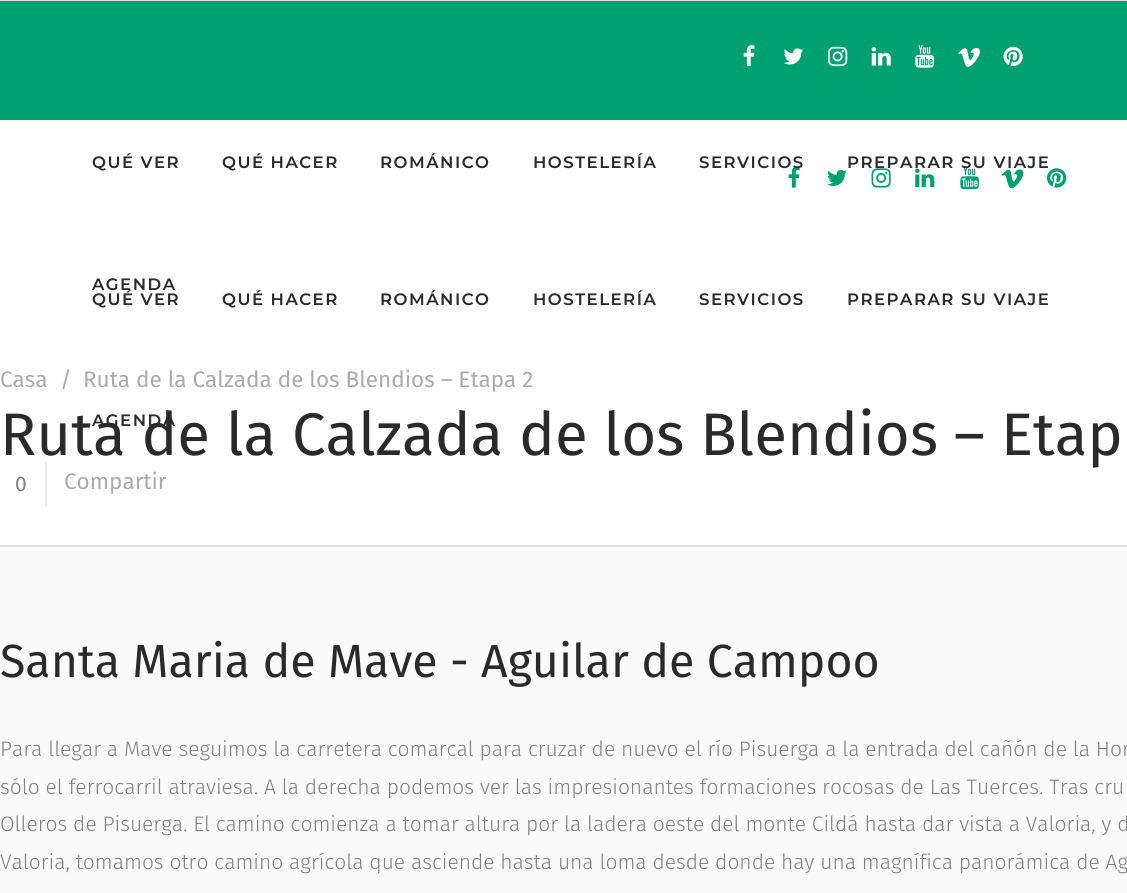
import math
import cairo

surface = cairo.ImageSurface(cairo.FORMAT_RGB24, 1127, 893)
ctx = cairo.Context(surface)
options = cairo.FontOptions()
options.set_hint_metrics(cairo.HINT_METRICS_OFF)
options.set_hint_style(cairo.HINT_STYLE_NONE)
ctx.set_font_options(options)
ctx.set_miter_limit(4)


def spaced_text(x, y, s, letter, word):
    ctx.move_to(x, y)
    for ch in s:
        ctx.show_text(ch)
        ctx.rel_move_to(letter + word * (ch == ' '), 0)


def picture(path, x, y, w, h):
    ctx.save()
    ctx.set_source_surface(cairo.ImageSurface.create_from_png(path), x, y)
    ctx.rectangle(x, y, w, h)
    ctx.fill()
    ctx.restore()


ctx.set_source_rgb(1, 1, 1)
ctx.paint()
ctx.set_source_rgb(0.882, 0.882, 0.882)
ctx.rectangle(0, 0, 1127, 1)
ctx.fill()
ctx.set_source_rgb(0, 0.631, 0.439)
ctx.rectangle(0, 1, 1127, 119)
ctx.fill()
picture("img1.png", 743, 45, 12, 22)
picture("img2.png", 783, 48, 21, 17)
picture("img3.png", 828, 46, 20, 21)
picture("img4.png", 871, 47, 20, 19)
picture("img5.png", 915, 45, 19, 23)
picture("img6.png", 958, 48, 22, 19)
picture("img7.png", 1003, 46, 20, 21)
ctx.select_font_face("Montserrat SemiBold")
ctx.set_font_size(16.5)
ctx.set_source_rgb(0.165, 0.165, 0.165)
spaced_text(92, 168, "QUÉ VER", 1.5, 0)
spaced_text(222, 168, "QUÉ HACER", 1.5, 0)
spaced_text(380, 168, "ROMÁNICO", 1.5, 0)
spaced_text(533, 168, "HOSTELERÍA", 1.5, 0)
picture("img8.png", 788, 166, 12, 22)
spaced_text(699, 168, "SERVICIOS", 1.5, 0)
picture("img10.png", 871, 168, 20, 20)
picture("img11.png", 915, 168, 20, 19)
picture("img12.png", 960, 166, 19, 24)
picture("img14.png", 1047, 168, 20, 20)
spaced_text(847, 168, "PREPARAR SU VIAJE", 1.5, 0)
spaced_text(92, 290, "AGENDA", 1.5, 0)
picture("img9.png", 827, 169, 20, 17)
picture("img13.png", 1001, 169, 23, 20)
spaced_text(92, 305, "QUÉ VER", 1.5, 0)
spaced_text(222, 305, "QUÉ HACER", 1.5, 0)
spaced_text(380, 305, "ROMÁNICO", 1.5, 0)
spaced_text(533, 305, "HOSTELERÍA", 1.5, 0)
spaced_text(699, 305, "SERVICIOS", 1.5, 0)
spaced_text(847, 305, "PREPARAR SU VIAJE", 1.5, 0)
ctx.select_font_face("Fira Sans")
ctx.set_font_size(60)
ctx.move_to(0, 455)
ctx.show_text("Ruta de la Calzada de los Blendios – Etap")
ctx.select_font_face("Montserrat SemiBold")
ctx.set_font_size(16.5)
spaced_text(92, 426, "AGENDA", 1.5, 0)
ctx.set_source_rgb(0.98, 0.98, 0.98)
ctx.rectangle(0, 547, 1127, 346)
ctx.fill()
ctx.set_source_rgb(0.882, 0.882, 0.882)
ctx.rectangle(0, 545, 1127, 2)
ctx.fill()
ctx.select_font_face("Fira Sans")
ctx.set_font_size(22.5)
ctx.set_source_rgb(0.671, 0.671, 0.671)
ctx.move_to(0, 387)
ctx.show_text("Casa")
ctx.move_to(60, 387)
ctx.show_text("/")
ctx.move_to(83, 387)
ctx.show_text("Ruta de la Calzada de los Blendios – Etapa 2")
ctx.set_source_rgb(0.922, 0.922, 0.922)
ctx.rectangle(45, 462, 2, 45)
ctx.fill()
ctx.set_font_size(21)
ctx.set_source_rgb(0.502, 0.502, 0.502)
ctx.move_to(15, 491)
ctx.show_text("0")
ctx.set_font_size(22.5)
ctx.set_source_rgb(0.671, 0.671, 0.671)
ctx.move_to(64, 489)
ctx.show_text("Compartir")
ctx.set_font_size(46.5)
ctx.set_source_rgb(0.165, 0.165, 0.165)
ctx.move_to(0, 677)
ctx.show_text("Santa Maria de Mave - Aguilar de Campoo")
ctx.select_font_face("Fira Sans Light")
ctx.set_font_size(21)
ctx.set_source_rgb(0.502, 0.502, 0.502)
ctx.move_to(0, 756)
ctx.show_text("Para llegar a Mave seguimos la carretera comarcal para cruzar de nuevo el río Pisuerga a la entrada del cañón de la Hor")
ctx.move_to(0, 794)
ctx.show_text("sólo el ferrocarril atraviesa. A la derecha podemos ver las impresionantes formaciones rocosas de Las Tuerces. Tras cru")
ctx.move_to(0, 831)
ctx.show_text("Olleros de Pisuerga. El camino comienza a tomar altura por la ladera oeste del monte Cildá hasta dar vista a Valoria, y d")
ctx.move_to(0, 869)
ctx.show_text("Valoria, tomamos otro camino agrícola que asciende hasta una loma desde donde hay una magnífica panorámica de Ag")
surface.write_to_png("page.png")
